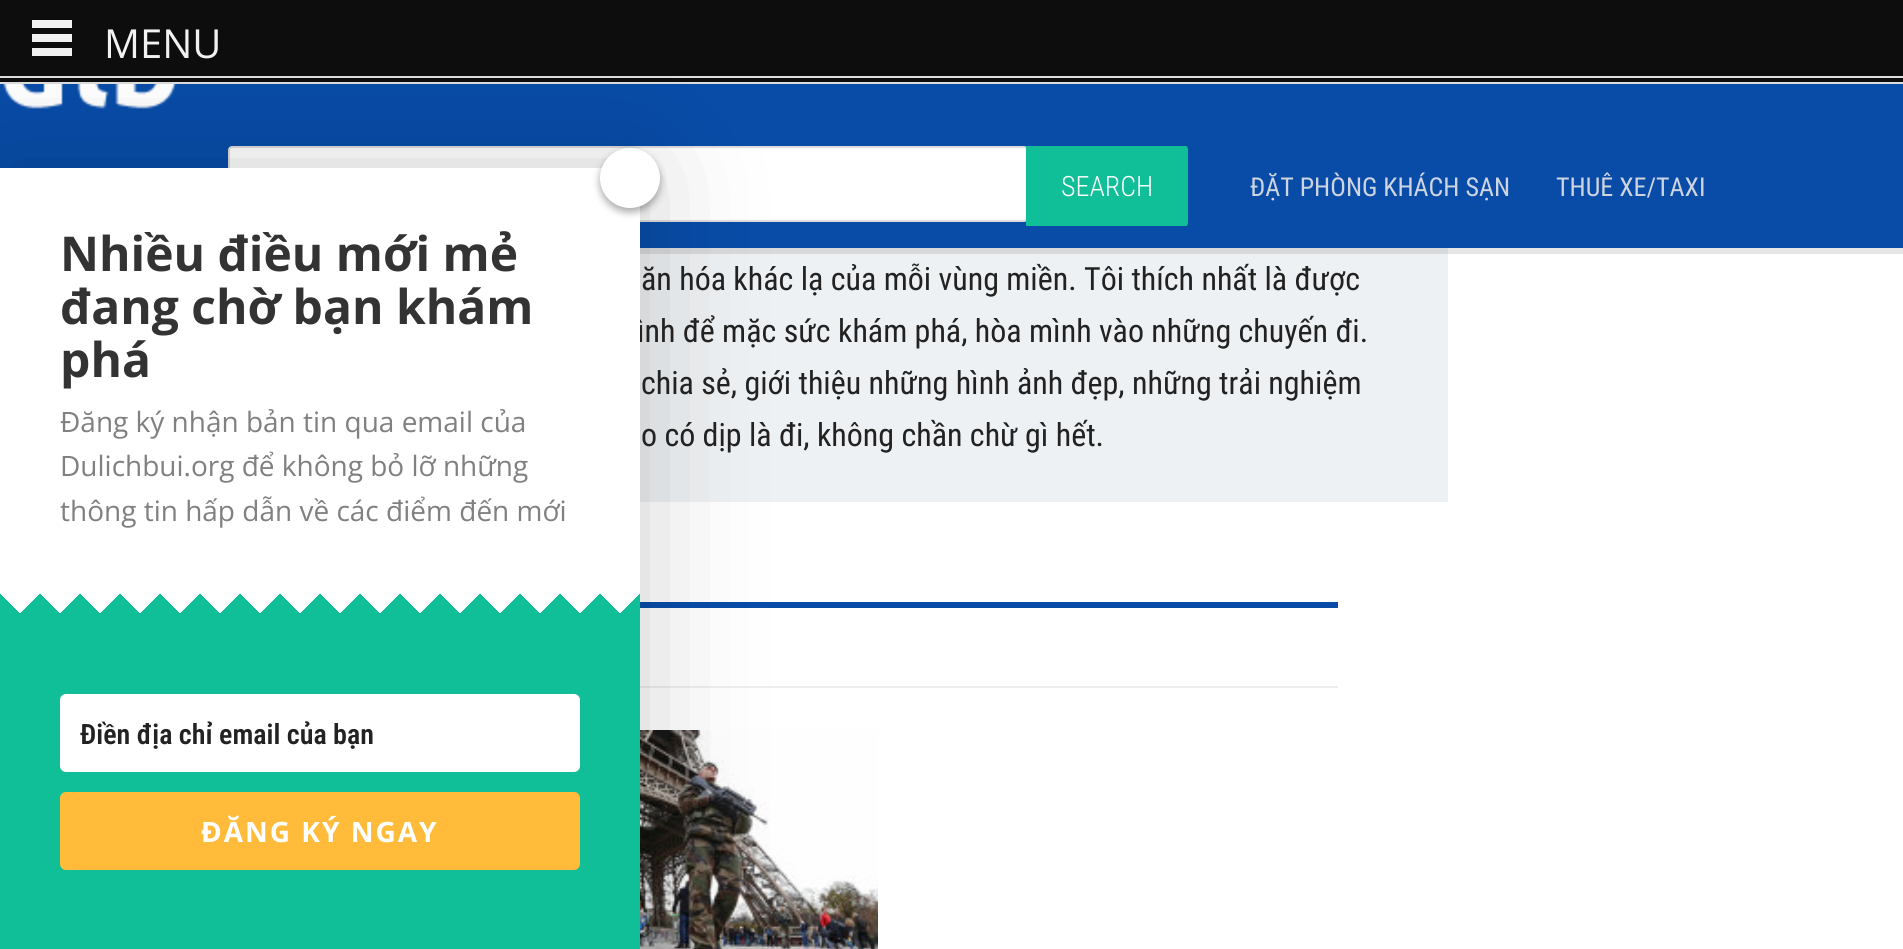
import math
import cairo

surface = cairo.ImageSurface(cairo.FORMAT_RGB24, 1903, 949)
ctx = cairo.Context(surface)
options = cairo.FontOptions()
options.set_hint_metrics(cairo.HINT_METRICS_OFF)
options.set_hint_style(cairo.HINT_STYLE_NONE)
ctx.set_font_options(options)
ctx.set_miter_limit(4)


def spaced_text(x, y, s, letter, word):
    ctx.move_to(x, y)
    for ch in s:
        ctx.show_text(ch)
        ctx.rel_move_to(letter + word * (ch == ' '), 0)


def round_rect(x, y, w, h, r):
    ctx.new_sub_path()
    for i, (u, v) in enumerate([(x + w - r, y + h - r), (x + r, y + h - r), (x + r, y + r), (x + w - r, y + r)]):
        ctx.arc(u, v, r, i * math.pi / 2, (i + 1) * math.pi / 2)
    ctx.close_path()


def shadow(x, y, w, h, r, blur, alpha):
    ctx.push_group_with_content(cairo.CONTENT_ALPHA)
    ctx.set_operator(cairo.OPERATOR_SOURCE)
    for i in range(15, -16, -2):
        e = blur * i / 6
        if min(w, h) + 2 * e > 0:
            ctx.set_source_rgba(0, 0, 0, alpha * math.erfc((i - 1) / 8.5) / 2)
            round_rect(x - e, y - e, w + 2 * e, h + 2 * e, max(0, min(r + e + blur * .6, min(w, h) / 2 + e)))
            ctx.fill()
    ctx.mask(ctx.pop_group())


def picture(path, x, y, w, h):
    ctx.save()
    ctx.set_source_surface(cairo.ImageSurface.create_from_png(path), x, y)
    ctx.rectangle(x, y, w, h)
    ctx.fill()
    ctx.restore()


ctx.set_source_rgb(1, 1, 1)
ctx.paint()
ctx.set_source_rgb(0.051, 0.051, 0.051)
ctx.rectangle(0, 0, 1903, 82)
ctx.fill()
ctx.set_source_rgb(0.867, 0.867, 0.867)
ctx.rectangle(0, 76, 1903, 2)
ctx.fill()
ctx.rectangle(0, 82, 1903, 2)
ctx.fill()
ctx.set_source_rgb(0.949, 0.949, 0.949)
ctx.rectangle(32, 20, 40, 8)
ctx.fill()
ctx.rectangle(32, 34, 40, 8)
ctx.fill()
ctx.rectangle(32, 48, 40, 8)
ctx.fill()
ctx.select_font_face("Open Sans")
ctx.set_font_size(40)
ctx.move_to(104, 58)
ctx.show_text("MENU")
ctx.set_source_rgb(0.933, 0.945, 0.953)
ctx.rectangle(640, 248, 808, 254)
ctx.fill()
ctx.set_source_rgba(0, 0, 0, 0.1)
ctx.rectangle(640, 248, 1263, 6)
ctx.fill()
ctx.set_source_rgb(0.035, 0.298, 0.659)
ctx.rectangle(0, 84, 1903, 164)
ctx.fill()
picture("img1.png", 3, 84, 174, 25)
ctx.set_source_rgb(1, 1, 1)
round_rect(229, 147, 798, 74, 3)
ctx.fill_preserve()
ctx.set_source_rgb(0.867, 0.867, 0.867)
ctx.stroke()
ctx.set_source_rgb(0.035, 0.298, 0.659)
ctx.rectangle(640, 602, 698, 6)
ctx.fill()
ctx.set_source_rgb(0.933, 0.933, 0.933)
ctx.rectangle(640, 686, 698, 2)
ctx.fill()
picture("img2.png", 640, 730, 238, 219)
ctx.set_source_rgb(0, 0, 0)
shadow(0, 168, 640, 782, 0, 60, 0.2)
ctx.select_font_face("Roboto Condensed")
ctx.set_font_size(32)
ctx.set_source_rgb(0.133, 0.133, 0.133)
ctx.move_to(637, 342)
ctx.show_text("ình để mặc sức khám phá, hòa mình vào những chuyến đi.")
ctx.set_source_rgb(1, 1, 1)
ctx.rectangle(0, 168, 640, 426)
ctx.fill()
ctx.set_source_rgb(0, 0, 0)
shadow(600, 152, 60, 60, 30, 4, 0.34)
ctx.set_source_rgb(1, 1, 1)
ctx.arc(630, 178, 30, 0, 2 * math.pi)
ctx.fill()
ctx.select_font_face("Open Sans", cairo.FONT_SLANT_NORMAL, cairo.FONT_WEIGHT_BOLD)
ctx.set_font_size(48)
ctx.set_source_rgb(0.2, 0.2, 0.2)
ctx.move_to(60, 271)
ctx.show_text("Nhiều điều mới mẻ")
ctx.move_to(60, 324)
ctx.show_text("đang chờ bạn khám")
ctx.move_to(60, 377)
ctx.show_text("phá")
ctx.select_font_face("Open Sans")
ctx.set_font_size(28)
ctx.set_source_rgb(0.502, 0.502, 0.502)
ctx.move_to(60, 432)
ctx.show_text("Đăng ký nhận bản tin qua email của")
ctx.move_to(60, 476)
ctx.show_text("Dulichbui.org để không bỏ lỡ những")
ctx.move_to(60, 521)
ctx.show_text("thông tin hấp dẫn về các điểm đến mới")
ctx.set_source_rgb(0.063, 0.745, 0.592)
ctx.rectangle(0, 614, 640, 335)
ctx.fill()
gradient = cairo.LinearGradient(50, 664, -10, 604)
gradient.add_color_stop_rgba(0.33, 1, 1, 1, 1)
gradient.add_color_stop_rgba(0.33, 0.063, 0.745, 0.592, 1)
gradient.add_color_stop_rgba(0.67, 0.063, 0.745, 0.592, 1)
gradient.add_color_stop_rgba(0.67, 1, 1, 1, 1)
ctx.set_source(gradient)
ctx.rectangle(1, 594, 39, 20)
ctx.fill()
gradient = cairo.LinearGradient(90, 664, 30, 604)
gradient.add_color_stop_rgba(0.33, 1, 1, 1, 1)
gradient.add_color_stop_rgba(0.33, 0.063, 0.745, 0.592, 1)
gradient.add_color_stop_rgba(0.67, 0.063, 0.745, 0.592, 1)
gradient.add_color_stop_rgba(0.67, 1, 1, 1, 1)
ctx.set_source(gradient)
ctx.rectangle(41, 594, 39, 20)
ctx.fill()
gradient = cairo.LinearGradient(130, 664, 70, 604)
gradient.add_color_stop_rgba(0.33, 1, 1, 1, 1)
gradient.add_color_stop_rgba(0.33, 0.063, 0.745, 0.592, 1)
gradient.add_color_stop_rgba(0.67, 0.063, 0.745, 0.592, 1)
gradient.add_color_stop_rgba(0.67, 1, 1, 1, 1)
ctx.set_source(gradient)
ctx.rectangle(81, 594, 39, 20)
ctx.fill()
gradient = cairo.LinearGradient(170, 664, 110, 604)
gradient.add_color_stop_rgba(0.33, 1, 1, 1, 1)
gradient.add_color_stop_rgba(0.33, 0.063, 0.745, 0.592, 1)
gradient.add_color_stop_rgba(0.67, 0.063, 0.745, 0.592, 1)
gradient.add_color_stop_rgba(0.67, 1, 1, 1, 1)
ctx.set_source(gradient)
ctx.rectangle(121, 594, 39, 20)
ctx.fill()
gradient = cairo.LinearGradient(210, 664, 150, 604)
gradient.add_color_stop_rgba(0.33, 1, 1, 1, 1)
gradient.add_color_stop_rgba(0.33, 0.063, 0.745, 0.592, 1)
gradient.add_color_stop_rgba(0.67, 0.063, 0.745, 0.592, 1)
gradient.add_color_stop_rgba(0.67, 1, 1, 1, 1)
ctx.set_source(gradient)
ctx.rectangle(161, 594, 39, 20)
ctx.fill()
gradient = cairo.LinearGradient(250, 664, 190, 604)
gradient.add_color_stop_rgba(0.33, 1, 1, 1, 1)
gradient.add_color_stop_rgba(0.33, 0.063, 0.745, 0.592, 1)
gradient.add_color_stop_rgba(0.67, 0.063, 0.745, 0.592, 1)
gradient.add_color_stop_rgba(0.67, 1, 1, 1, 1)
ctx.set_source(gradient)
ctx.rectangle(201, 594, 39, 20)
ctx.fill()
gradient = cairo.LinearGradient(290, 664, 230, 604)
gradient.add_color_stop_rgba(0.33, 1, 1, 1, 1)
gradient.add_color_stop_rgba(0.33, 0.063, 0.745, 0.592, 1)
gradient.add_color_stop_rgba(0.67, 0.063, 0.745, 0.592, 1)
gradient.add_color_stop_rgba(0.67, 1, 1, 1, 1)
ctx.set_source(gradient)
ctx.rectangle(241, 594, 39, 20)
ctx.fill()
gradient = cairo.LinearGradient(330, 664, 270, 604)
gradient.add_color_stop_rgba(0.33, 1, 1, 1, 1)
gradient.add_color_stop_rgba(0.33, 0.063, 0.745, 0.592, 1)
gradient.add_color_stop_rgba(0.67, 0.063, 0.745, 0.592, 1)
gradient.add_color_stop_rgba(0.67, 1, 1, 1, 1)
ctx.set_source(gradient)
ctx.rectangle(281, 594, 39, 20)
ctx.fill()
gradient = cairo.LinearGradient(370, 664, 310, 604)
gradient.add_color_stop_rgba(0.33, 1, 1, 1, 1)
gradient.add_color_stop_rgba(0.33, 0.063, 0.745, 0.592, 1)
gradient.add_color_stop_rgba(0.67, 0.063, 0.745, 0.592, 1)
gradient.add_color_stop_rgba(0.67, 1, 1, 1, 1)
ctx.set_source(gradient)
ctx.rectangle(321, 594, 39, 20)
ctx.fill()
gradient = cairo.LinearGradient(410, 664, 350, 604)
gradient.add_color_stop_rgba(0.33, 1, 1, 1, 1)
gradient.add_color_stop_rgba(0.33, 0.063, 0.745, 0.592, 1)
gradient.add_color_stop_rgba(0.67, 0.063, 0.745, 0.592, 1)
gradient.add_color_stop_rgba(0.67, 1, 1, 1, 1)
ctx.set_source(gradient)
ctx.rectangle(361, 594, 39, 20)
ctx.fill()
gradient = cairo.LinearGradient(450, 664, 390, 604)
gradient.add_color_stop_rgba(0.33, 1, 1, 1, 1)
gradient.add_color_stop_rgba(0.33, 0.063, 0.745, 0.592, 1)
gradient.add_color_stop_rgba(0.67, 0.063, 0.745, 0.592, 1)
gradient.add_color_stop_rgba(0.67, 1, 1, 1, 1)
ctx.set_source(gradient)
ctx.rectangle(401, 594, 39, 20)
ctx.fill()
gradient = cairo.LinearGradient(490, 664, 430, 604)
gradient.add_color_stop_rgba(0.33, 1, 1, 1, 1)
gradient.add_color_stop_rgba(0.33, 0.063, 0.745, 0.592, 1)
gradient.add_color_stop_rgba(0.67, 0.063, 0.745, 0.592, 1)
gradient.add_color_stop_rgba(0.67, 1, 1, 1, 1)
ctx.set_source(gradient)
ctx.rectangle(441, 594, 39, 20)
ctx.fill()
gradient = cairo.LinearGradient(530, 664, 470, 604)
gradient.add_color_stop_rgba(0.33, 1, 1, 1, 1)
gradient.add_color_stop_rgba(0.33, 0.063, 0.745, 0.592, 1)
gradient.add_color_stop_rgba(0.67, 0.063, 0.745, 0.592, 1)
gradient.add_color_stop_rgba(0.67, 1, 1, 1, 1)
ctx.set_source(gradient)
ctx.rectangle(481, 594, 39, 20)
ctx.fill()
gradient = cairo.LinearGradient(570, 664, 510, 604)
gradient.add_color_stop_rgba(0.33, 1, 1, 1, 1)
gradient.add_color_stop_rgba(0.33, 0.063, 0.745, 0.592, 1)
gradient.add_color_stop_rgba(0.67, 0.063, 0.745, 0.592, 1)
gradient.add_color_stop_rgba(0.67, 1, 1, 1, 1)
ctx.set_source(gradient)
ctx.rectangle(521, 594, 39, 20)
ctx.fill()
gradient = cairo.LinearGradient(610, 664, 550, 604)
gradient.add_color_stop_rgba(0.33, 1, 1, 1, 1)
gradient.add_color_stop_rgba(0.33, 0.063, 0.745, 0.592, 1)
gradient.add_color_stop_rgba(0.67, 0.063, 0.745, 0.592, 1)
gradient.add_color_stop_rgba(0.67, 1, 1, 1, 1)
ctx.set_source(gradient)
ctx.rectangle(561, 594, 39, 20)
ctx.fill()
gradient = cairo.LinearGradient(650, 664, 590, 604)
gradient.add_color_stop_rgba(0.33, 1, 1, 1, 1)
gradient.add_color_stop_rgba(0.33, 0.063, 0.745, 0.592, 1)
gradient.add_color_stop_rgba(0.67, 0.063, 0.745, 0.592, 1)
gradient.add_color_stop_rgba(0.67, 1, 1, 1, 1)
ctx.set_source(gradient)
ctx.rectangle(601, 594, 39, 20)
ctx.fill()
gradient = cairo.LinearGradient(-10, 664, 50, 604)
gradient.add_color_stop_rgba(0.33, 0.063, 0.745, 0.592, 0)
gradient.add_color_stop_rgba(0.33, 0.063, 0.745, 0.592, 1)
gradient.add_color_stop_rgba(0.67, 0.063, 0.745, 0.592, 1)
gradient.add_color_stop_rgba(0.67, 0.063, 0.745, 0.592, 0)
ctx.set_source(gradient)
ctx.rectangle(0, 594, 20, 20)
ctx.fill()
gradient = cairo.LinearGradient(30, 664, 90, 604)
gradient.add_color_stop_rgba(0.33, 0.063, 0.745, 0.592, 0)
gradient.add_color_stop_rgba(0.33, 0.063, 0.745, 0.592, 1)
gradient.add_color_stop_rgba(0.67, 0.063, 0.745, 0.592, 1)
gradient.add_color_stop_rgba(0.67, 0.063, 0.745, 0.592, 0)
ctx.set_source(gradient)
ctx.rectangle(40, 594, 20, 20)
ctx.fill()
gradient = cairo.LinearGradient(70, 664, 130, 604)
gradient.add_color_stop_rgba(0.33, 0.063, 0.745, 0.592, 0)
gradient.add_color_stop_rgba(0.33, 0.063, 0.745, 0.592, 1)
gradient.add_color_stop_rgba(0.67, 0.063, 0.745, 0.592, 1)
gradient.add_color_stop_rgba(0.67, 0.063, 0.745, 0.592, 0)
ctx.set_source(gradient)
ctx.rectangle(80, 594, 20, 20)
ctx.fill()
gradient = cairo.LinearGradient(110, 664, 170, 604)
gradient.add_color_stop_rgba(0.33, 0.063, 0.745, 0.592, 0)
gradient.add_color_stop_rgba(0.33, 0.063, 0.745, 0.592, 1)
gradient.add_color_stop_rgba(0.67, 0.063, 0.745, 0.592, 1)
gradient.add_color_stop_rgba(0.67, 0.063, 0.745, 0.592, 0)
ctx.set_source(gradient)
ctx.rectangle(120, 594, 20, 20)
ctx.fill()
gradient = cairo.LinearGradient(150, 664, 210, 604)
gradient.add_color_stop_rgba(0.33, 0.063, 0.745, 0.592, 0)
gradient.add_color_stop_rgba(0.33, 0.063, 0.745, 0.592, 1)
gradient.add_color_stop_rgba(0.67, 0.063, 0.745, 0.592, 1)
gradient.add_color_stop_rgba(0.67, 0.063, 0.745, 0.592, 0)
ctx.set_source(gradient)
ctx.rectangle(160, 594, 20, 20)
ctx.fill()
gradient = cairo.LinearGradient(190, 664, 250, 604)
gradient.add_color_stop_rgba(0.33, 0.063, 0.745, 0.592, 0)
gradient.add_color_stop_rgba(0.33, 0.063, 0.745, 0.592, 1)
gradient.add_color_stop_rgba(0.67, 0.063, 0.745, 0.592, 1)
gradient.add_color_stop_rgba(0.67, 0.063, 0.745, 0.592, 0)
ctx.set_source(gradient)
ctx.rectangle(200, 594, 20, 20)
ctx.fill()
gradient = cairo.LinearGradient(230, 664, 290, 604)
gradient.add_color_stop_rgba(0.33, 0.063, 0.745, 0.592, 0)
gradient.add_color_stop_rgba(0.33, 0.063, 0.745, 0.592, 1)
gradient.add_color_stop_rgba(0.67, 0.063, 0.745, 0.592, 1)
gradient.add_color_stop_rgba(0.67, 0.063, 0.745, 0.592, 0)
ctx.set_source(gradient)
ctx.rectangle(240, 594, 20, 20)
ctx.fill()
gradient = cairo.LinearGradient(270, 664, 330, 604)
gradient.add_color_stop_rgba(0.33, 0.063, 0.745, 0.592, 0)
gradient.add_color_stop_rgba(0.33, 0.063, 0.745, 0.592, 1)
gradient.add_color_stop_rgba(0.67, 0.063, 0.745, 0.592, 1)
gradient.add_color_stop_rgba(0.67, 0.063, 0.745, 0.592, 0)
ctx.set_source(gradient)
ctx.rectangle(280, 594, 20, 20)
ctx.fill()
gradient = cairo.LinearGradient(310, 664, 370, 604)
gradient.add_color_stop_rgba(0.33, 0.063, 0.745, 0.592, 0)
gradient.add_color_stop_rgba(0.33, 0.063, 0.745, 0.592, 1)
gradient.add_color_stop_rgba(0.67, 0.063, 0.745, 0.592, 1)
gradient.add_color_stop_rgba(0.67, 0.063, 0.745, 0.592, 0)
ctx.set_source(gradient)
ctx.rectangle(320, 594, 20, 20)
ctx.fill()
gradient = cairo.LinearGradient(350, 664, 410, 604)
gradient.add_color_stop_rgba(0.33, 0.063, 0.745, 0.592, 0)
gradient.add_color_stop_rgba(0.33, 0.063, 0.745, 0.592, 1)
gradient.add_color_stop_rgba(0.67, 0.063, 0.745, 0.592, 1)
gradient.add_color_stop_rgba(0.67, 0.063, 0.745, 0.592, 0)
ctx.set_source(gradient)
ctx.rectangle(360, 594, 20, 20)
ctx.fill()
gradient = cairo.LinearGradient(390, 664, 450, 604)
gradient.add_color_stop_rgba(0.33, 0.063, 0.745, 0.592, 0)
gradient.add_color_stop_rgba(0.33, 0.063, 0.745, 0.592, 1)
gradient.add_color_stop_rgba(0.67, 0.063, 0.745, 0.592, 1)
gradient.add_color_stop_rgba(0.67, 0.063, 0.745, 0.592, 0)
ctx.set_source(gradient)
ctx.rectangle(400, 594, 20, 20)
ctx.fill()
gradient = cairo.LinearGradient(430, 664, 490, 604)
gradient.add_color_stop_rgba(0.33, 0.063, 0.745, 0.592, 0)
gradient.add_color_stop_rgba(0.33, 0.063, 0.745, 0.592, 1)
gradient.add_color_stop_rgba(0.67, 0.063, 0.745, 0.592, 1)
gradient.add_color_stop_rgba(0.67, 0.063, 0.745, 0.592, 0)
ctx.set_source(gradient)
ctx.rectangle(440, 594, 20, 20)
ctx.fill()
gradient = cairo.LinearGradient(470, 664, 530, 604)
gradient.add_color_stop_rgba(0.33, 0.063, 0.745, 0.592, 0)
gradient.add_color_stop_rgba(0.33, 0.063, 0.745, 0.592, 1)
gradient.add_color_stop_rgba(0.67, 0.063, 0.745, 0.592, 1)
gradient.add_color_stop_rgba(0.67, 0.063, 0.745, 0.592, 0)
ctx.set_source(gradient)
ctx.rectangle(480, 594, 20, 20)
ctx.fill()
gradient = cairo.LinearGradient(510, 664, 570, 604)
gradient.add_color_stop_rgba(0.33, 0.063, 0.745, 0.592, 0)
gradient.add_color_stop_rgba(0.33, 0.063, 0.745, 0.592, 1)
gradient.add_color_stop_rgba(0.67, 0.063, 0.745, 0.592, 1)
gradient.add_color_stop_rgba(0.67, 0.063, 0.745, 0.592, 0)
ctx.set_source(gradient)
ctx.rectangle(520, 594, 20, 20)
ctx.fill()
gradient = cairo.LinearGradient(550, 664, 610, 604)
gradient.add_color_stop_rgba(0.33, 0.063, 0.745, 0.592, 0)
gradient.add_color_stop_rgba(0.33, 0.063, 0.745, 0.592, 1)
gradient.add_color_stop_rgba(0.67, 0.063, 0.745, 0.592, 1)
gradient.add_color_stop_rgba(0.67, 0.063, 0.745, 0.592, 0)
ctx.set_source(gradient)
ctx.rectangle(560, 594, 20, 20)
ctx.fill()
gradient = cairo.LinearGradient(590, 664, 650, 604)
gradient.add_color_stop_rgba(0.33, 0.063, 0.745, 0.592, 0)
gradient.add_color_stop_rgba(0.33, 0.063, 0.745, 0.592, 1)
gradient.add_color_stop_rgba(0.67, 0.063, 0.745, 0.592, 1)
gradient.add_color_stop_rgba(0.67, 0.063, 0.745, 0.592, 0)
ctx.set_source(gradient)
ctx.rectangle(600, 594, 20, 20)
ctx.fill()
ctx.set_source_rgb(1, 1, 1)
round_rect(60, 694, 520, 78, 6)
ctx.fill()
ctx.select_font_face("Roboto Condensed SemiBold")
ctx.set_source_rgb(0.133, 0.133, 0.133)
ctx.move_to(80, 744)
ctx.show_text("Điền địa chỉ email của bạn")
ctx.set_source_rgb(1, 0.733, 0.224)
round_rect(60, 792, 520, 78, 6)
ctx.fill()
ctx.select_font_face("Open Sans", cairo.FONT_SLANT_NORMAL, cairo.FONT_WEIGHT_BOLD)
ctx.set_source_rgb(1, 1, 1)
spaced_text(201, 842, "ĐĂNG KÝ NGAY", 2, 0)
ctx.save()
ctx.rectangle(228, 146, 1000, 80)
ctx.clip()
ctx.set_source_rgb(0.063, 0.745, 0.592)
ctx.new_path()
ctx.move_to(1026, 144)
ctx.line_to(1182, 144)
ctx.curve_to(1185.5, 144, 1188, 146.5, 1188, 150)
ctx.line_to(1188, 222)
ctx.curve_to(1188, 225.5, 1185.5, 228, 1182, 228)
ctx.line_to(1026, 228)
ctx.close_path()
ctx.fill()
ctx.restore()
ctx.select_font_face("Roboto Condensed Light")
ctx.move_to(1061, 196)
ctx.show_text("SEARCH")
ctx.select_font_face("Roboto Condensed")
ctx.set_font_size(26)
ctx.set_source_rgb(0.808, 0.835, 0.878)
ctx.move_to(1250, 196)
ctx.show_text("ĐẶT PHÒNG KHÁCH SẠN")
ctx.move_to(1556, 196)
ctx.show_text("THUÊ XE/TAXI")
ctx.set_font_size(32)
ctx.set_source_rgb(0.133, 0.133, 0.133)
ctx.move_to(641, 290)
ctx.show_text("ăn hóa khác lạ của mỗi vùng miền. Tôi thích nhất là được")
ctx.move_to(641, 394)
ctx.show_text("chia sẻ, giới thiệu những hình ảnh đẹp, những trải nghiệm")
ctx.move_to(641, 446)
ctx.show_text("o có dịp là đi, không chần chừ gì hết.")
surface.write_to_png("page.png")
